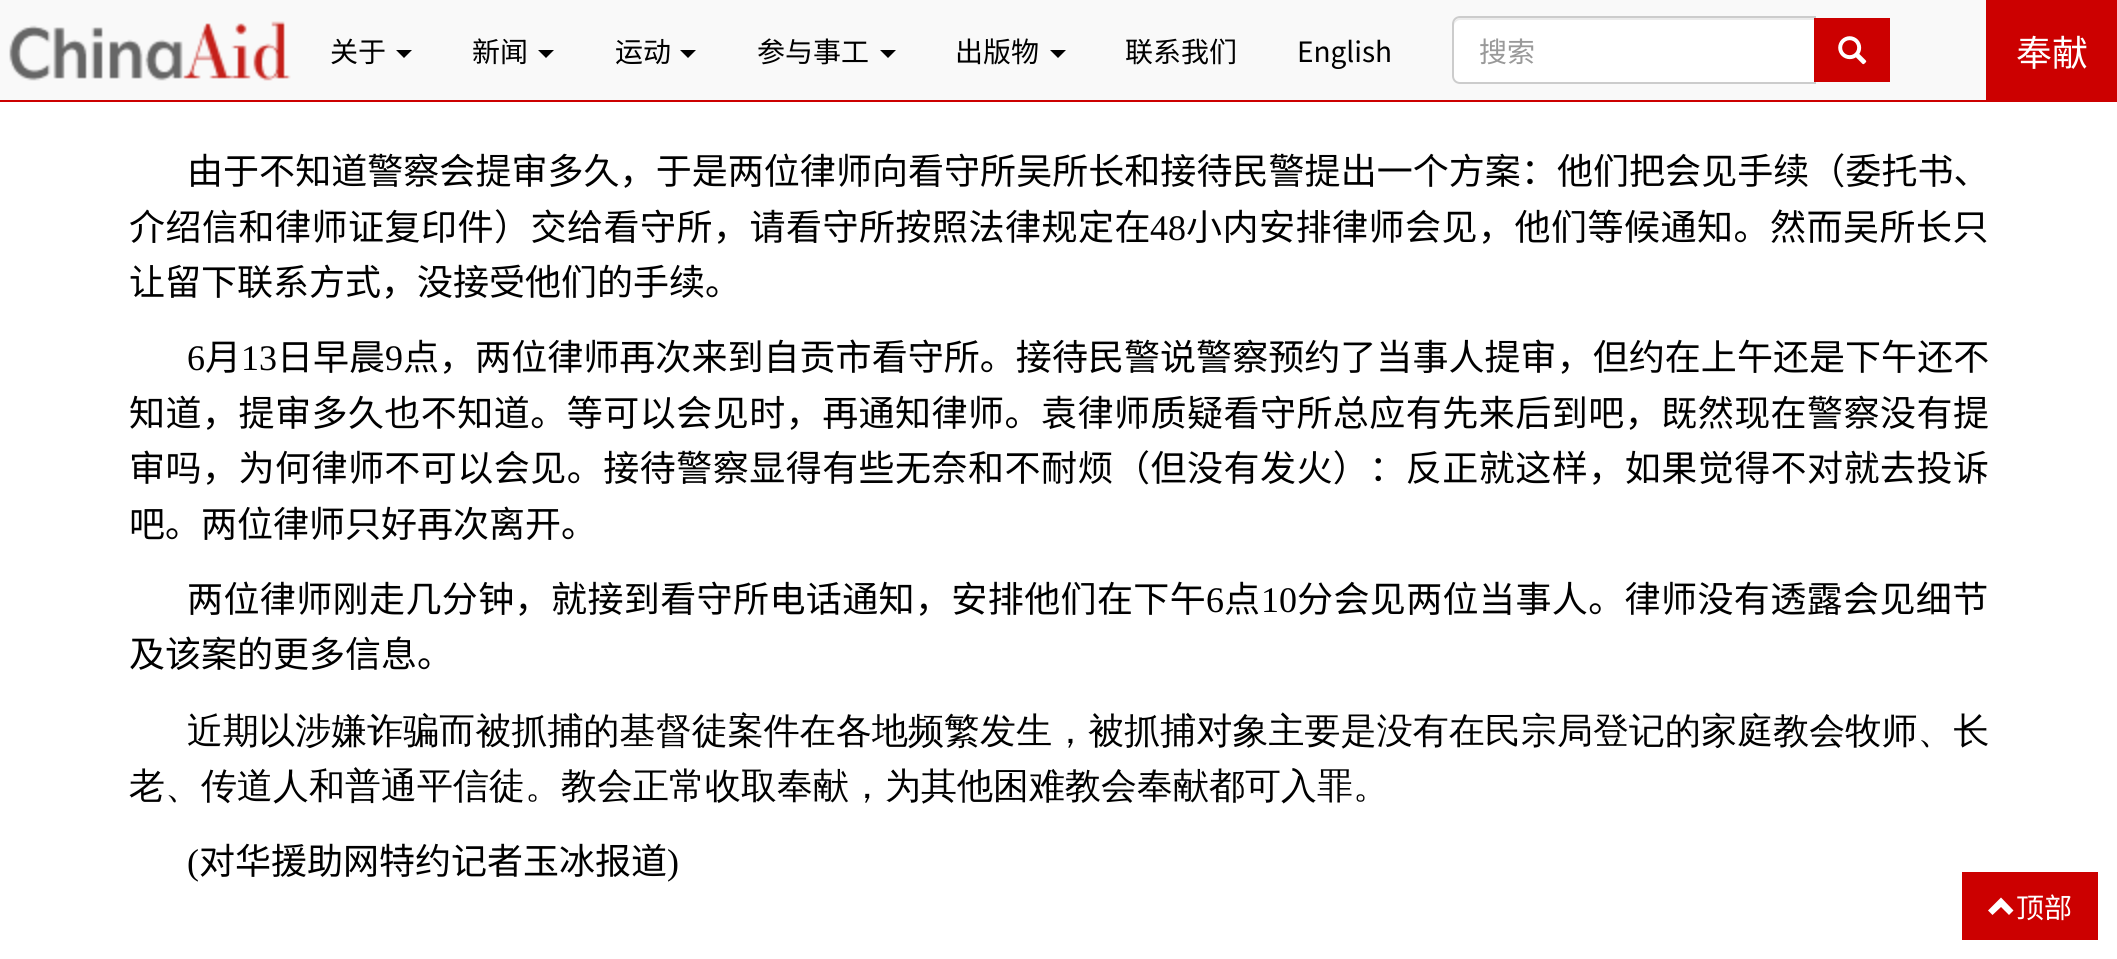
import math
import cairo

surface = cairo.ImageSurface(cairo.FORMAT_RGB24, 2117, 959)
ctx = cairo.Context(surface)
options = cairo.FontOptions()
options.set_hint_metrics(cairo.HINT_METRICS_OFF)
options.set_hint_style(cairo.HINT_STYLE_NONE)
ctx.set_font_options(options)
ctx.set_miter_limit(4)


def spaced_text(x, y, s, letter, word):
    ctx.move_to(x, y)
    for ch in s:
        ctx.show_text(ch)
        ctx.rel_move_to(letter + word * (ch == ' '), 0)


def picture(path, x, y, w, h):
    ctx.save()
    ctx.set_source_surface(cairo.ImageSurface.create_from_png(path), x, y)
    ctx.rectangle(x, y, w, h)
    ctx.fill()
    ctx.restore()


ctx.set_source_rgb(1, 1, 1)
ctx.paint()
ctx.set_source_rgb(0.973, 0.973, 0.973)
ctx.rectangle(0, 0, 1986, 100)
ctx.fill()
ctx.set_source_rgb(0.8, 0, 0)
ctx.rectangle(0, 100, 2117, 2)
ctx.fill()
picture("img1.png", 9, 21, 282, 60)
ctx.select_font_face("Noto Sans SC")
ctx.set_font_size(28)
ctx.set_source_rgb(0, 0, 0)
ctx.move_to(330, 62)
ctx.show_text("关于")
ctx.new_path()
ctx.move_to(396, 50)
ctx.line_to(412, 50)
ctx.line_to(404, 58)
ctx.close_path()
ctx.fill()
ctx.move_to(472, 62)
ctx.show_text("新闻")
ctx.new_path()
ctx.move_to(538, 50)
ctx.line_to(554, 50)
ctx.line_to(546, 58)
ctx.close_path()
ctx.fill()
ctx.move_to(615, 62)
ctx.show_text("运动")
ctx.new_path()
ctx.move_to(680, 50)
ctx.line_to(696, 50)
ctx.line_to(688, 58)
ctx.close_path()
ctx.fill()
ctx.move_to(757, 62)
ctx.show_text("参与事工")
ctx.new_path()
ctx.move_to(880, 50)
ctx.line_to(896, 50)
ctx.line_to(888, 58)
ctx.close_path()
ctx.fill()
ctx.move_to(955, 62)
ctx.show_text("出版物")
ctx.new_path()
ctx.move_to(1050, 50)
ctx.line_to(1066, 50)
ctx.line_to(1058, 58)
ctx.close_path()
ctx.fill()
ctx.move_to(1125, 62)
ctx.show_text("联系我们")
ctx.move_to(1297, 62)
ctx.show_text("English")
ctx.set_source_rgb(1, 1, 1)
ctx.new_path()
ctx.move_to(1460, 16)
ctx.line_to(1816, 16)
ctx.line_to(1816, 84)
ctx.line_to(1460, 84)
ctx.curve_to(1455.5, 84, 1452, 80.5, 1452, 76)
ctx.line_to(1452, 24)
ctx.curve_to(1452, 19.5, 1455.5, 16, 1460, 16)
ctx.close_path()
ctx.fill()
ctx.set_source_rgb(0.925, 0.925, 0.925)
ctx.new_path()
ctx.move_to(1460, 20)
ctx.line_to(1814, 20)
ctx.line_to(1814, 18)
ctx.line_to(1460, 18)
ctx.curve_to(1457, 18, 1454, 21, 1454, 24)
ctx.line_to(1454, 26)
ctx.curve_to(1454, 23, 1457, 20, 1460, 20)
ctx.close_path()
ctx.fill()
ctx.new_path()
ctx.move_to(1460, 17)
ctx.line_to(1815, 17)
ctx.line_to(1815, 83)
ctx.line_to(1460, 83)
ctx.curve_to(1456, 83, 1453, 80, 1453, 76)
ctx.line_to(1453, 24)
ctx.curve_to(1453, 20, 1456, 17, 1460, 17)
ctx.close_path()
ctx.set_source_rgb(0.8, 0.8, 0.8)
ctx.stroke()
ctx.set_source_rgb(0.6, 0.6, 0.6)
ctx.move_to(1479, 62)
ctx.show_text("搜索")
ctx.set_source_rgb(0.8, 0, 0)
ctx.rectangle(1814, 18, 76, 64)
ctx.fill()
picture("img2.png", 1838, 36, 29, 29)
ctx.rectangle(1986, 0, 131, 100)
ctx.fill()
ctx.set_font_size(36)
ctx.set_source_rgb(1, 1, 1)
ctx.move_to(2016, 66)
ctx.show_text("奉献")
ctx.select_font_face("Noto Sans CJK SC")
ctx.set_source_rgb(0, 0, 0)
spaced_text(187, 184, "由于不知道警察会提审多久，于是两位律师向看守所吴所长和接待民警提出一个方案：他们把会见手续（委托书、", 0.05, 0)
spaced_text(129, 240, "介绍信和律师证复印件）交给看守所，请看守所按照法律规定在", 0.5, 0)
ctx.select_font_face("Liberation Serif")
ctx.move_to(1150, 240)
ctx.show_text("48")
ctx.select_font_face("Noto Sans CJK SC")
spaced_text(1186, 240, "小内安排律师会见，他们等候通知。然而吴所长只", 0.5, 0)
ctx.move_to(129, 295)
ctx.show_text("让留下联系方式，没接受他们的手续。")
ctx.select_font_face("Liberation Serif")
ctx.move_to(187, 370)
ctx.show_text("6")
ctx.select_font_face("Noto Sans CJK SC")
ctx.move_to(205, 370)
ctx.show_text("月")
ctx.select_font_face("Liberation Serif")
ctx.move_to(241, 370)
ctx.show_text("13")
ctx.select_font_face("Noto Sans CJK SC")
ctx.move_to(277, 370)
ctx.show_text("日早晨")
ctx.select_font_face("Liberation Serif")
ctx.move_to(385, 370)
ctx.show_text("9")
ctx.select_font_face("Noto Sans CJK SC")
spaced_text(403, 370, "点，两位律师再次来到自贡市看守所。接待民警说警察预约了当事人提审，但约在上午还是下午还不", 0.05, 0)
spaced_text(129, 426, "知道，提审多久也不知道。等可以会见时，再通知律师。袁律师质疑看守所总应有先来后到吧，既然现在警察没有提", 0.48, 0)
spaced_text(129, 481, "审吗，为何律师不可以会见。接待警察显得有些无奈和不耐烦（但没有发火）：反正就这样，如果觉得不对就去投诉", 0.48, 0)
ctx.move_to(129, 537)
ctx.show_text("吧。两位律师只好再次离开。")
spaced_text(187, 612, "两位律师刚走几分钟，就接到看守所电话通知，安排他们在下午", 0.4, 0)
ctx.select_font_face("Liberation Serif")
ctx.move_to(1206, 612)
ctx.show_text("6")
ctx.select_font_face("Noto Sans CJK SC")
ctx.move_to(1224, 612)
ctx.show_text("点")
ctx.select_font_face("Liberation Serif")
ctx.move_to(1261, 612)
ctx.show_text("10")
ctx.select_font_face("Noto Sans CJK SC")
spaced_text(1297, 612, "分会见两位当事人。律师没有透露会见细节", 0.4, 0)
ctx.move_to(129, 667)
ctx.show_text("及该案的更多信息。")
ctx.select_font_face("WenQuanYi Zen Hei Medium")
spaced_text(187, 743, "近期以涉嫌诈骗而被抓捕的基督徒案件在各地频繁发生，被抓捕对象主要是没有在民宗局登记的家庭教会牧师、长", 0.05, 0)
ctx.move_to(129, 798)
ctx.show_text("老、传道人和普通平信徒。教会正常收取奉献，为其他困难教会奉献都可入罪。")
ctx.select_font_face("Liberation Serif")
ctx.move_to(187, 874)
ctx.show_text("(")
ctx.select_font_face("Noto Sans CJK SC")
ctx.move_to(199, 874)
ctx.show_text("对华援助网特约记者玉冰报道")
ctx.select_font_face("Liberation Serif")
ctx.move_to(667, 874)
ctx.show_text(")")
ctx.set_source_rgb(0.8, 0, 0)
ctx.rectangle(1962, 872, 136, 68)
ctx.fill()
ctx.set_source_rgb(1, 1, 1)
ctx.new_path()
ctx.move_to(2013.5, 910.5)
ctx.line_to(2009, 915)
ctx.line_to(2001, 907)
ctx.line_to(1992.5, 915)
ctx.line_to(1988, 910.5)
ctx.line_to(2001, 897.5)
ctx.close_path()
ctx.fill()
ctx.select_font_face("Noto Sans SC")
ctx.set_font_size(28)
ctx.move_to(2016, 918)
ctx.show_text("顶部")
surface.write_to_png("page.png")
